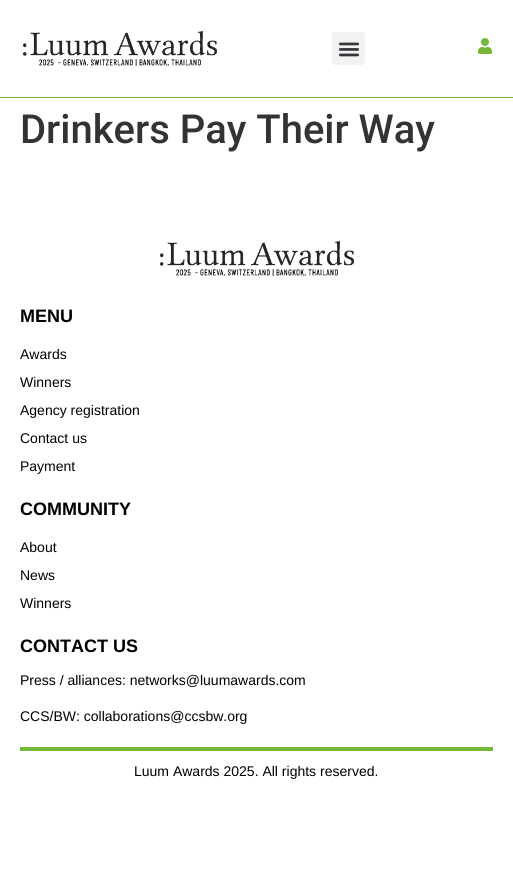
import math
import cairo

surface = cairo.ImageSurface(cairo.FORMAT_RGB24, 513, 891)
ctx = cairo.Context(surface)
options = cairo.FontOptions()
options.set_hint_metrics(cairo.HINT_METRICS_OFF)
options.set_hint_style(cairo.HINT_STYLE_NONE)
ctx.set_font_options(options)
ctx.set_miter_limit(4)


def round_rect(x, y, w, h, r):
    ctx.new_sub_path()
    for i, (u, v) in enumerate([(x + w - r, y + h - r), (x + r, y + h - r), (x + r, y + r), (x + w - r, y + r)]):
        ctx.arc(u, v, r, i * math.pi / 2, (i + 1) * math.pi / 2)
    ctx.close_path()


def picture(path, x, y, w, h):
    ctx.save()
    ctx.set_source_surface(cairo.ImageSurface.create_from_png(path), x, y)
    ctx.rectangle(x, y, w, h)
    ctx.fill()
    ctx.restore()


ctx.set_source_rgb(1, 1, 1)
ctx.paint()
ctx.set_source_rgb(0.459, 0.722, 0.224)
ctx.rectangle(0, 97, 513, 1)
ctx.fill()
picture("img1.png", 23, 31, 194, 35)
ctx.set_source_rgb(0.949, 0.949, 0.949)
round_rect(332, 32, 33, 33, 3)
ctx.fill()
picture("img2.png", 338, 42, 22, 15)
picture("img3.png", 478, 38, 14, 16)
ctx.select_font_face("Roboto Medium")
ctx.set_font_size(40)
ctx.set_source_rgb(0.2, 0.2, 0.2)
ctx.move_to(20, 143)
ctx.show_text("Drinkers Pay Their Way")
picture("img4.png", 160, 241, 194, 35)
ctx.select_font_face("Liberation Sans", cairo.FONT_SLANT_NORMAL, cairo.FONT_WEIGHT_BOLD)
ctx.set_font_size(18)
ctx.set_source_rgb(0, 0, 0)
ctx.move_to(20, 322)
ctx.show_text("MENU")
ctx.select_font_face("Liberation Sans")
ctx.set_font_size(14)
ctx.move_to(20, 359)
ctx.show_text("Awards")
ctx.move_to(20, 387)
ctx.show_text("Winners")
ctx.move_to(20, 415)
ctx.show_text("Agency registration")
ctx.move_to(20, 443)
ctx.show_text("Contact us")
ctx.move_to(20, 471)
ctx.show_text("Payment")
ctx.select_font_face("Liberation Sans", cairo.FONT_SLANT_NORMAL, cairo.FONT_WEIGHT_BOLD)
ctx.set_font_size(18)
ctx.move_to(20, 515)
ctx.show_text("COMMUNITY")
ctx.select_font_face("Liberation Sans")
ctx.set_font_size(14)
ctx.move_to(20, 552)
ctx.show_text("About")
ctx.move_to(20, 580)
ctx.show_text("News")
ctx.move_to(20, 608)
ctx.show_text("Winners")
ctx.select_font_face("Liberation Sans", cairo.FONT_SLANT_NORMAL, cairo.FONT_WEIGHT_BOLD)
ctx.set_font_size(18)
ctx.move_to(20, 652)
ctx.show_text("CONTACT US")
ctx.select_font_face("Liberation Sans")
ctx.set_font_size(14)
ctx.move_to(20, 685)
ctx.show_text("Press / alliances: networks@luumawards.com")
ctx.move_to(20, 721)
ctx.show_text("CCS/BW: collaborations@ccsbw.org")
ctx.set_source_rgb(0.459, 0.722, 0.224)
ctx.rectangle(20, 747, 473, 4)
ctx.fill()
ctx.set_source_rgb(0, 0, 0)
ctx.move_to(134, 776)
ctx.show_text("Luum Awards 2025. All rights reserved.")
surface.write_to_png("page.png")
